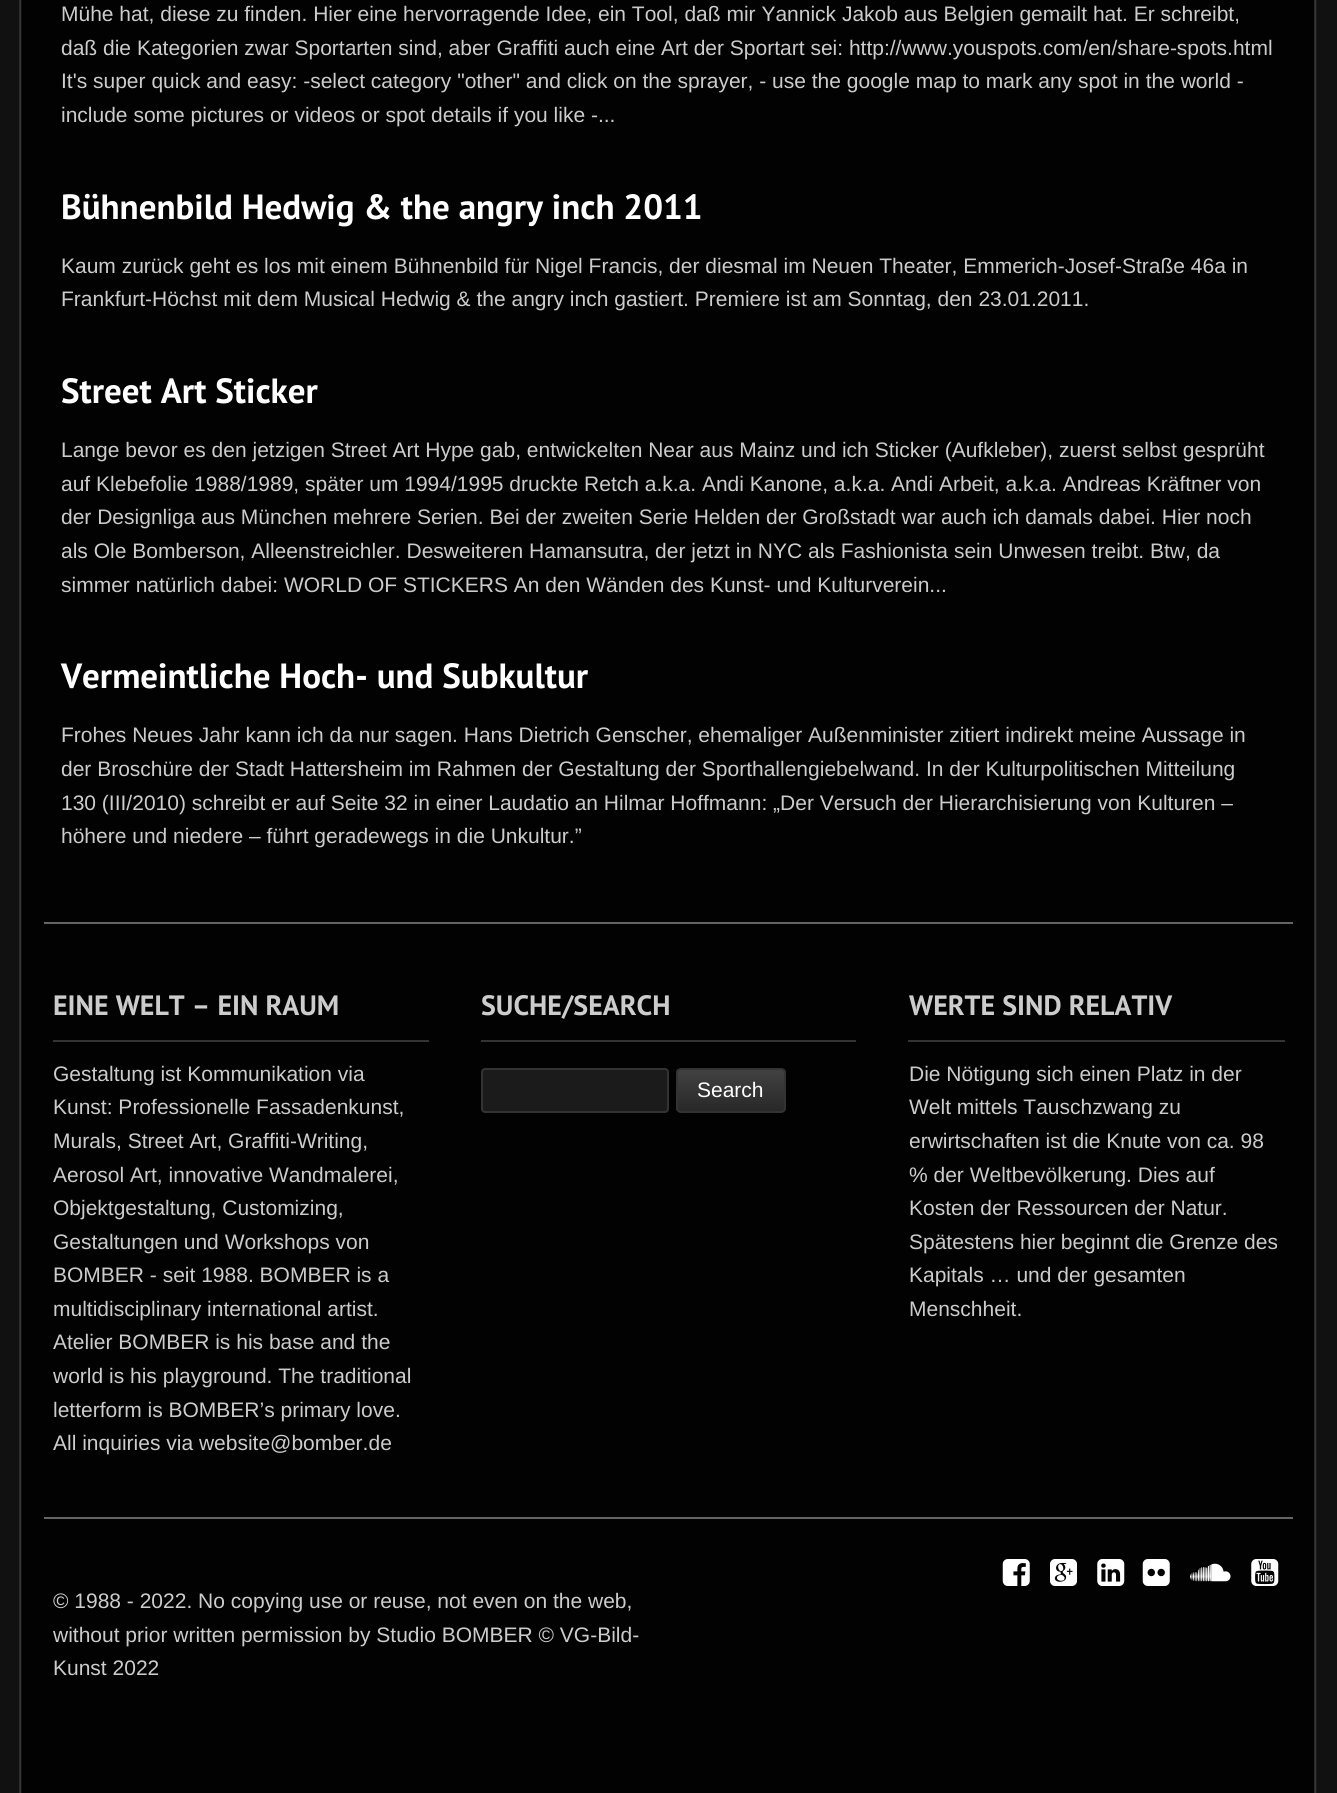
import math
import cairo

surface = cairo.ImageSurface(cairo.FORMAT_RGB24, 1337, 1793)
ctx = cairo.Context(surface)
options = cairo.FontOptions()
options.set_hint_metrics(cairo.HINT_METRICS_OFF)
options.set_hint_style(cairo.HINT_STYLE_NONE)
ctx.set_font_options(options)
ctx.set_miter_limit(4)


def round_rect(x, y, w, h, r):
    ctx.new_sub_path()
    for i, (u, v) in enumerate([(x + w - r, y + h - r), (x + r, y + h - r), (x + r, y + r), (x + w - r, y + r)]):
        ctx.arc(u, v, r, i * math.pi / 2, (i + 1) * math.pi / 2)
    ctx.close_path()


def picture(path, x, y, w, h):
    ctx.save()
    ctx.set_source_surface(cairo.ImageSurface.create_from_png(path), x, y)
    ctx.rectangle(x, y, w, h)
    ctx.fill()
    ctx.restore()


ctx.set_source_rgb(0.067, 0.067, 0.067)
ctx.paint()
picture("img1.png", 19, 0, 1298, 1793)
ctx.select_font_face("Liberation Sans")
ctx.set_font_size(21)
ctx.set_source_rgb(0.8, 0.8, 0.8)
ctx.move_to(61, 21)
ctx.show_text("Mühe hat, diese zu finden. Hier eine hervorragende Idee, ein Tool, daß mir Yannick Jakob aus Belgien gemailt hat. Er schreibt,")
ctx.move_to(61, 55)
ctx.show_text("daß die Kategorien zwar Sportarten sind, aber Graffiti auch eine Art der Sportart sei: http://www.youspots.com/en/share-spots.html")
ctx.move_to(61, 88)
ctx.show_text("It's super quick and easy: -select category \"other\" and click on the sprayer, - use the google map to mark any spot in the world -")
ctx.move_to(61, 122)
ctx.show_text("include some pictures or videos or spot details if you like -...")
ctx.select_font_face("PT Sans", cairo.FONT_SLANT_NORMAL, cairo.FONT_WEIGHT_BOLD)
ctx.set_font_size(35)
ctx.set_source_rgb(1, 1, 1)
ctx.move_to(61, 219)
ctx.show_text("Bühnenbild Hedwig & the angry inch 2011")
ctx.select_font_face("Liberation Sans")
ctx.set_font_size(21)
ctx.set_source_rgb(0.8, 0.8, 0.8)
ctx.move_to(61, 273)
ctx.show_text("Kaum zurück geht es los mit einem Bühnenbild für Nigel Francis, der diesmal im Neuen Theater, Emmerich-Josef-Straße 46a in")
ctx.move_to(61, 306)
ctx.show_text("Frankfurt-Höchst mit dem Musical Hedwig & the angry inch gastiert. Premiere ist am Sonntag, den 23.01.2011.")
ctx.select_font_face("PT Sans", cairo.FONT_SLANT_NORMAL, cairo.FONT_WEIGHT_BOLD)
ctx.set_font_size(35)
ctx.set_source_rgb(1, 1, 1)
ctx.move_to(61, 403)
ctx.show_text("Street Art Sticker")
ctx.select_font_face("Liberation Sans")
ctx.set_font_size(21)
ctx.set_source_rgb(0.8, 0.8, 0.8)
ctx.move_to(61, 457)
ctx.show_text("Lange bevor es den jetzigen Street Art Hype gab, entwickelten Near aus Mainz und ich Sticker (Aufkleber), zuerst selbst gesprüht")
ctx.move_to(61, 491)
ctx.show_text("auf Klebefolie 1988/1989, später um 1994/1995 druckte Retch a.k.a. Andi Kanone, a.k.a. Andi Arbeit, a.k.a. Andreas Kräftner von")
ctx.move_to(61, 524)
ctx.show_text("der Designliga aus München mehrere Serien. Bei der zweiten Serie Helden der Großstadt war auch ich damals dabei. Hier noch")
ctx.move_to(61, 558)
ctx.show_text("als Ole Bomberson, Alleenstreichler. Desweiteren Hamansutra, der jetzt in NYC als Fashionista sein Unwesen treibt. Btw, da")
ctx.move_to(61, 592)
ctx.show_text("simmer natürlich dabei: WORLD OF STICKERS An den Wänden des Kunst- und Kulturverein...")
ctx.select_font_face("PT Sans", cairo.FONT_SLANT_NORMAL, cairo.FONT_WEIGHT_BOLD)
ctx.set_font_size(35)
ctx.set_source_rgb(1, 1, 1)
ctx.move_to(61, 688)
ctx.show_text("Vermeintliche Hoch- und Subkultur")
ctx.select_font_face("Liberation Sans")
ctx.set_font_size(21)
ctx.set_source_rgb(0.8, 0.8, 0.8)
ctx.move_to(61, 742)
ctx.show_text("Frohes Neues Jahr kann ich da nur sagen. Hans Dietrich Genscher, ehemaliger Außenminister zitiert indirekt meine Aussage in")
ctx.move_to(61, 776)
ctx.show_text("der Broschüre der Stadt Hattersheim im Rahmen der Gestaltung der Sporthallengiebelwand. In der Kulturpolitischen Mitteilung")
ctx.move_to(61, 810)
ctx.show_text("130 (III/2010) schreibt er auf Seite 32 in einer Laudatio an Hilmar Hoffmann: „Der Versuch der Hierarchisierung von Kulturen –")
ctx.move_to(61, 843)
ctx.show_text("höhere und niedere – führt geradewegs in die Unkultur.”")
ctx.set_source_rgb(0.392, 0.392, 0.392)
ctx.rectangle(44, 922, 1249, 2)
ctx.fill()
ctx.set_source_rgb(0.2, 0.2, 0.2)
ctx.rectangle(53, 1040, 376, 2)
ctx.fill()
ctx.select_font_face("PT Sans", cairo.FONT_SLANT_NORMAL, cairo.FONT_WEIGHT_BOLD)
ctx.set_font_size(28)
ctx.set_source_rgb(0.8, 0.8, 0.8)
ctx.move_to(53, 1015)
ctx.show_text("EINE WELT – EIN RAUM")
ctx.select_font_face("Liberation Sans")
ctx.set_font_size(21)
ctx.move_to(53, 1081)
ctx.show_text("Gestaltung ist Kommunikation via")
ctx.move_to(53, 1114)
ctx.show_text("Kunst: Professionelle Fassadenkunst,")
ctx.move_to(53, 1148)
ctx.show_text("Murals, Street Art, Graffiti-Writing,")
ctx.move_to(53, 1182)
ctx.show_text("Aerosol Art, innovative Wandmalerei,")
ctx.move_to(53, 1215)
ctx.show_text("Objektgestaltung, Customizing,")
ctx.move_to(53, 1249)
ctx.show_text("Gestaltungen und Workshops von")
ctx.move_to(53, 1282)
ctx.show_text("BOMBER - seit 1988. BOMBER is a")
ctx.move_to(53, 1316)
ctx.show_text("multidisciplinary international artist.")
ctx.move_to(53, 1349)
ctx.show_text("Atelier BOMBER is his base and the")
ctx.move_to(53, 1383)
ctx.show_text("world is his playground. The traditional")
ctx.move_to(53, 1417)
ctx.show_text("letterform is BOMBER’s primary love.")
ctx.move_to(53, 1450)
ctx.show_text("All inquiries via website@bomber.de")
ctx.set_source_rgb(0.2, 0.2, 0.2)
ctx.rectangle(481, 1040, 375, 2)
ctx.fill()
ctx.select_font_face("PT Sans", cairo.FONT_SLANT_NORMAL, cairo.FONT_WEIGHT_BOLD)
ctx.set_font_size(28)
ctx.set_source_rgb(0.8, 0.8, 0.8)
ctx.move_to(481, 1015)
ctx.show_text("SUCHE/SEARCH")
ctx.set_source_rgb(0.106, 0.106, 0.106)
round_rect(482, 1069, 186, 43, 3)
ctx.fill_preserve()
ctx.set_source_rgb(0.2, 0.2, 0.2)
ctx.stroke()
ctx.save()
round_rect(676, 1068, 110, 45, 5)
ctx.clip()
gradient = cairo.LinearGradient(677, 1069, 677, 1111)
gradient.add_color_stop_rgba(0, 0.259, 0.259, 0.259, 1)
gradient.add_color_stop_rgba(1, 0.157, 0.157, 0.157, 1)
ctx.set_source(gradient)
ctx.rectangle(676, 1069, 110, 42)
ctx.fill()
ctx.restore()
round_rect(677, 1069, 108, 43, 4)
ctx.stroke()
ctx.select_font_face("Liberation Sans")
ctx.set_font_size(21)
ctx.set_source_rgb(1, 1, 1)
ctx.move_to(697, 1097)
ctx.show_text("Search")
ctx.set_source_rgb(0.2, 0.2, 0.2)
ctx.rectangle(908, 1040, 377, 2)
ctx.fill()
ctx.select_font_face("PT Sans", cairo.FONT_SLANT_NORMAL, cairo.FONT_WEIGHT_BOLD)
ctx.set_font_size(28)
ctx.set_source_rgb(0.8, 0.8, 0.8)
ctx.move_to(909, 1015)
ctx.show_text("WERTE SIND RELATIV")
ctx.select_font_face("Liberation Sans")
ctx.set_font_size(21)
ctx.move_to(909, 1081)
ctx.show_text("Die Nötigung sich einen Platz in der")
ctx.move_to(909, 1114)
ctx.show_text("Welt mittels Tauschzwang zu")
ctx.move_to(909, 1148)
ctx.show_text("erwirtschaften ist die Knute von ca. 98")
ctx.move_to(909, 1182)
ctx.show_text("% der Weltbevölkerung. Dies auf")
ctx.move_to(909, 1215)
ctx.show_text("Kosten der Ressourcen der Natur.")
ctx.move_to(909, 1249)
ctx.show_text("Spätestens hier beginnt die Grenze des")
ctx.move_to(909, 1282)
ctx.show_text("Kapitals … und der gesamten")
ctx.move_to(909, 1316)
ctx.show_text("Menschheit.")
ctx.set_source_rgb(0.392, 0.392, 0.392)
ctx.rectangle(44, 1517, 1249, 2)
ctx.fill()
picture("img2.png", 1002, 1559, 28, 27)
picture("img3.png", 1050, 1559, 27, 27)
picture("img4.png", 1097, 1559, 28, 27)
picture("img5.png", 1142, 1559, 28, 27)
picture("img6.png", 1190, 1563, 41, 19)
picture("img7.png", 1251, 1559, 28, 27)
ctx.set_source_rgb(0.8, 0.8, 0.8)
ctx.move_to(53, 1608)
ctx.show_text("© 1988 - 2022. No copying use or reuse, not even on the web,")
ctx.move_to(53, 1642)
ctx.show_text("without prior written permission by Studio BOMBER © VG-Bild-")
ctx.move_to(53, 1675)
ctx.show_text("Kunst 2022")
surface.write_to_png("page.png")
